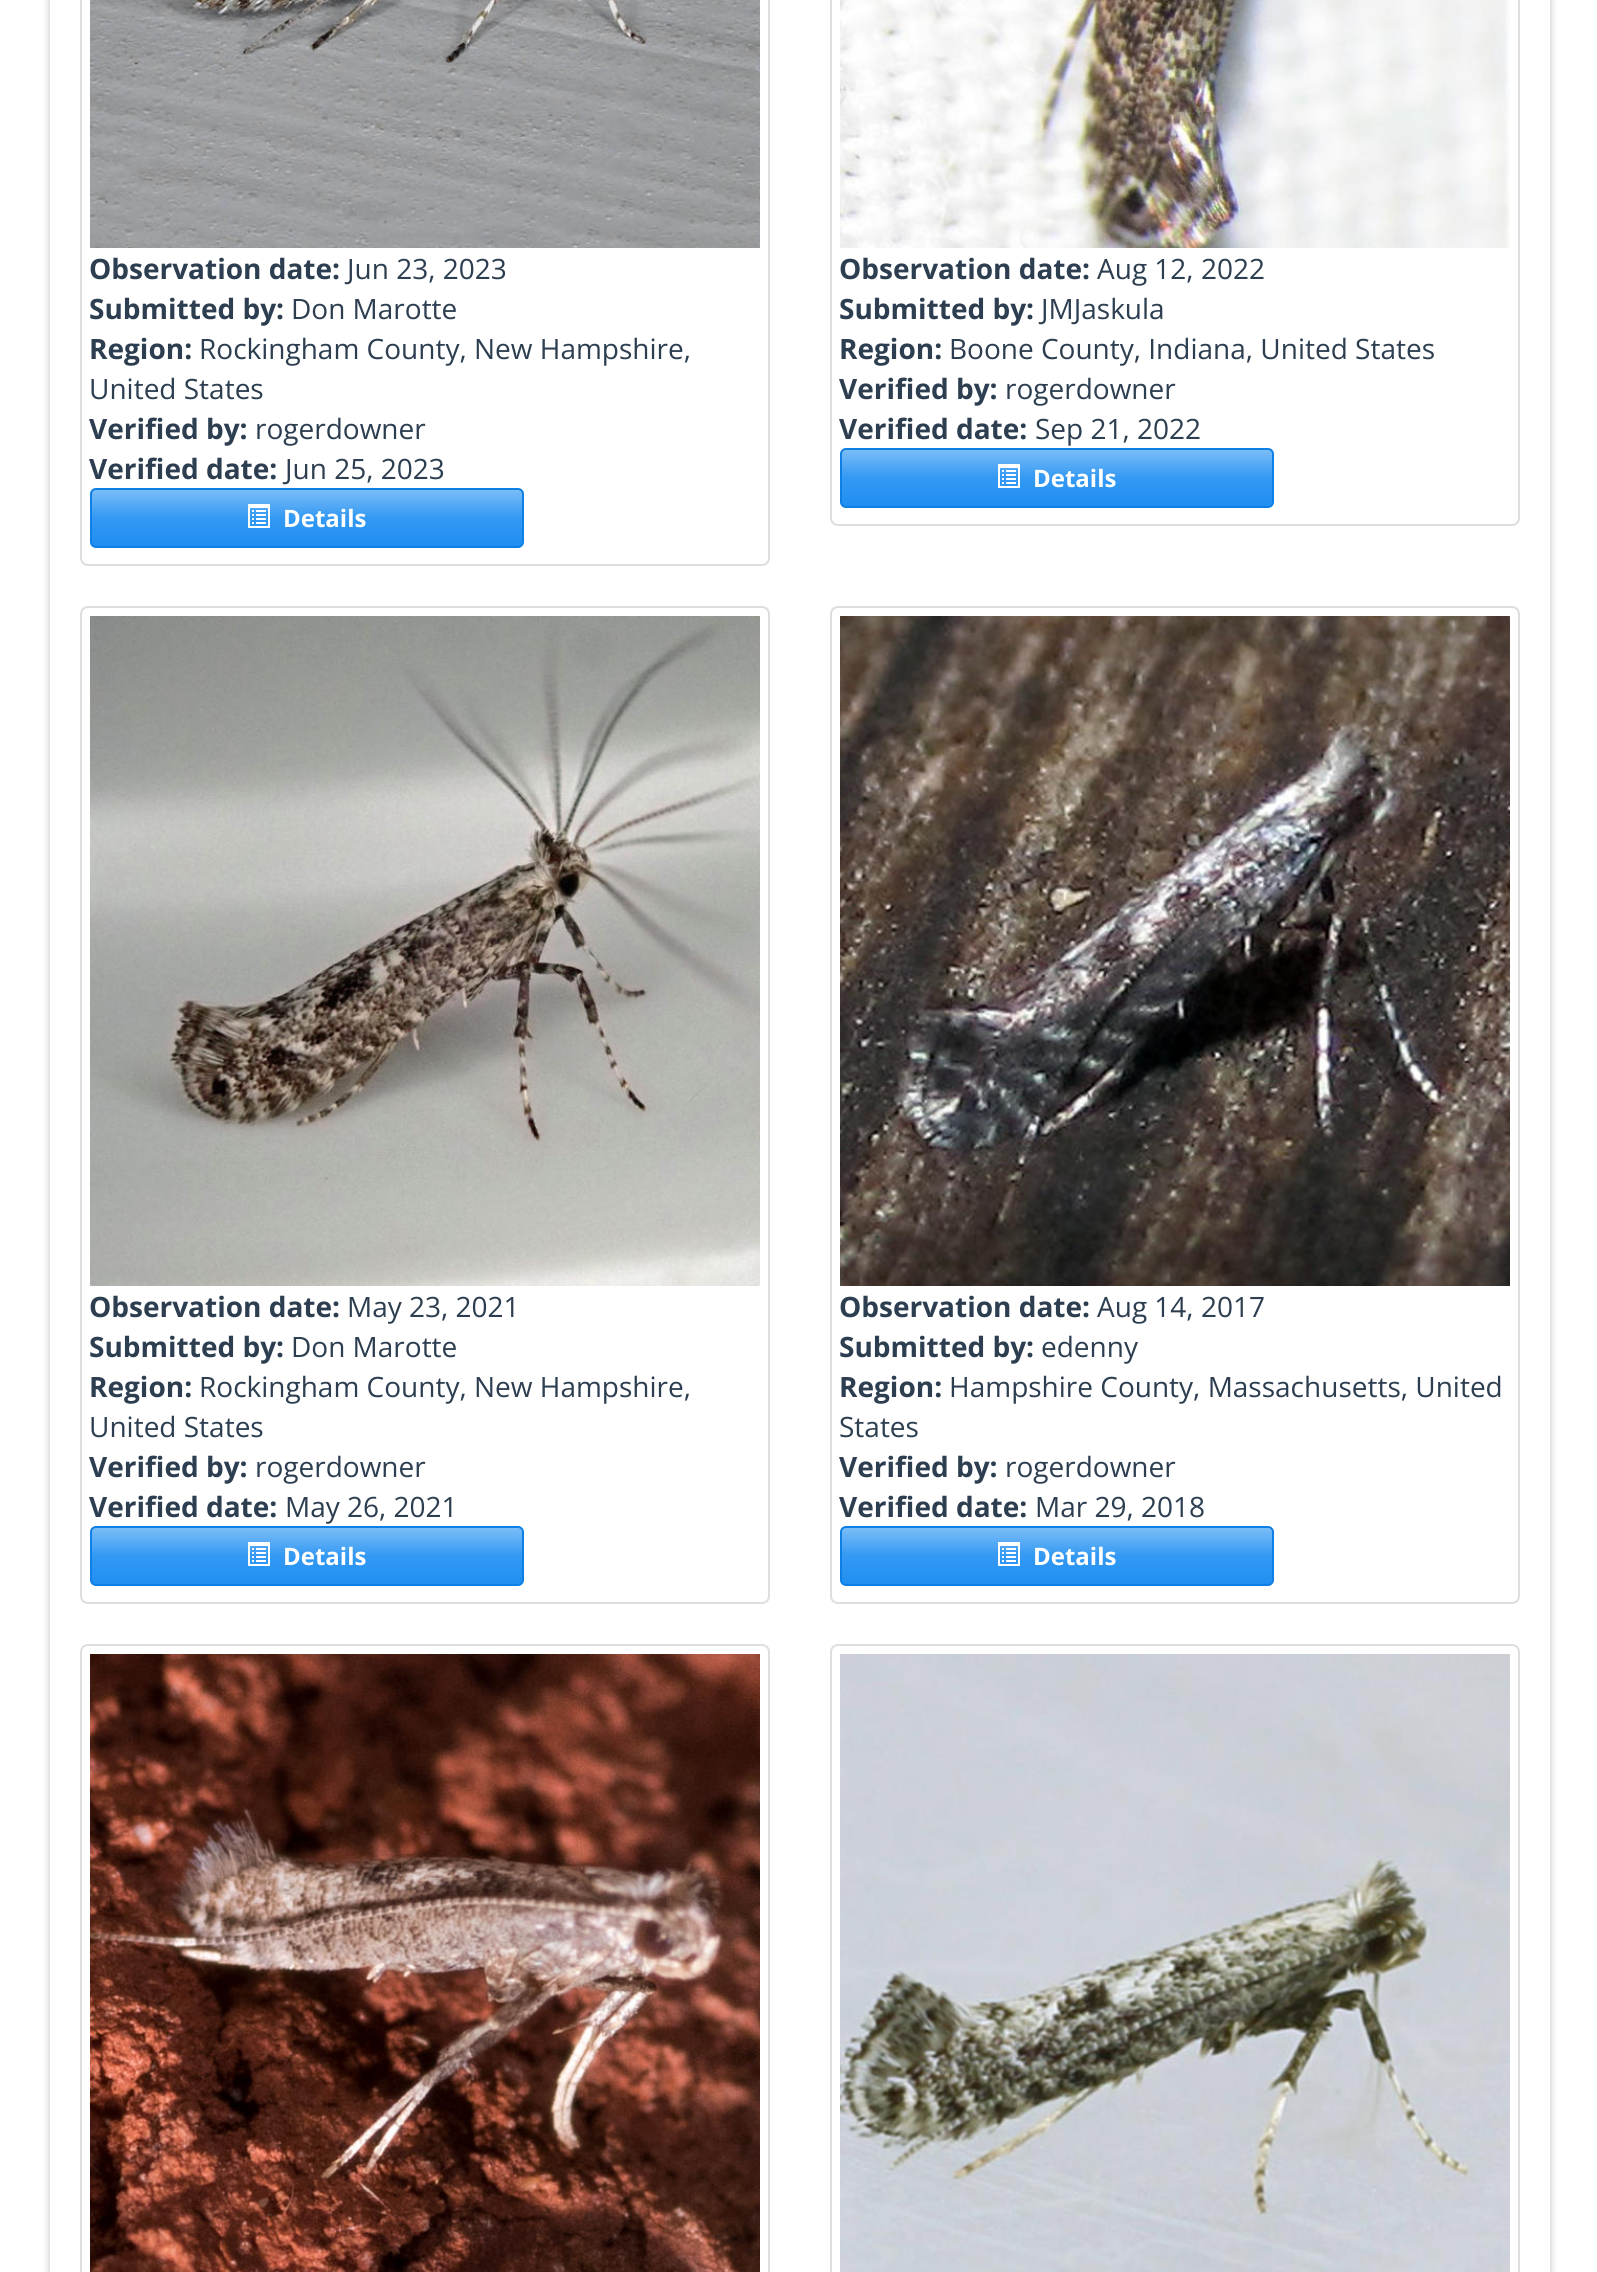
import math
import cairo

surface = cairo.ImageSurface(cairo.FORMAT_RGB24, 1597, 2272)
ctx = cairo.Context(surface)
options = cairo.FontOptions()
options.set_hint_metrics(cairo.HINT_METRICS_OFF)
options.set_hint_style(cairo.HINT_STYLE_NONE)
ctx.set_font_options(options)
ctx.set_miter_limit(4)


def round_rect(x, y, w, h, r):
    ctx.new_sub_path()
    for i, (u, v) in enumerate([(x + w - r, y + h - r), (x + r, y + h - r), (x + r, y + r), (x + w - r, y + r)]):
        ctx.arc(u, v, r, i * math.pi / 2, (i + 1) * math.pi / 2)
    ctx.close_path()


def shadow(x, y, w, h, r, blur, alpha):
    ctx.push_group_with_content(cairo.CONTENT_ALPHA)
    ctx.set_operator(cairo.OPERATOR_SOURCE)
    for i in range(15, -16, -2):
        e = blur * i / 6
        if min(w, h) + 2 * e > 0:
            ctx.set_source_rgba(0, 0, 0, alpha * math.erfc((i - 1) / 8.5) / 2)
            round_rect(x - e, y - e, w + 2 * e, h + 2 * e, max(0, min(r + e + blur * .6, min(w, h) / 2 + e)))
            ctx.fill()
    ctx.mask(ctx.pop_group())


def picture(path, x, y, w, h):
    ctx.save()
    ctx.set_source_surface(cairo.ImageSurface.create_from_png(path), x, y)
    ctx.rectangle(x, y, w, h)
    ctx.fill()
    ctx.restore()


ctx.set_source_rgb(1, 1, 1)
ctx.paint()
ctx.save()
ctx.set_fill_rule(cairo.FILL_RULE_EVEN_ODD)
ctx.new_path()
ctx.move_to(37, 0)
ctx.line_to(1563, 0)
ctx.line_to(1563, 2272)
ctx.line_to(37, 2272)
ctx.close_path()
ctx.move_to(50, -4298)
ctx.line_to(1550, -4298)
ctx.line_to(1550, 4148)
ctx.line_to(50, 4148)
ctx.close_path()
ctx.clip()
ctx.set_source_rgb(0, 0, 0)
shadow(50, -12, 1500, 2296, 0, 4, 0.25)
ctx.restore()
round_rect(81, -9, 688, 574, 7)
ctx.set_source_rgb(0.867, 0.867, 0.867)
ctx.stroke()
picture("img1.png", 90, 0, 670, 248)
ctx.select_font_face("Open Sans", cairo.FONT_SLANT_NORMAL, cairo.FONT_WEIGHT_BOLD)
ctx.set_font_size(28)
ctx.set_source_rgb(0.173, 0.243, 0.314)
ctx.move_to(89, 279)
ctx.show_text("Observation date:")
ctx.select_font_face("Open Sans")
ctx.move_to(347, 279)
ctx.show_text("Jun 23, 2023")
ctx.select_font_face("Open Sans", cairo.FONT_SLANT_NORMAL, cairo.FONT_WEIGHT_BOLD)
ctx.move_to(89, 319)
ctx.show_text("Submitted by:")
ctx.select_font_face("Open Sans")
ctx.move_to(291, 319)
ctx.show_text("Don Marotte")
ctx.select_font_face("Open Sans", cairo.FONT_SLANT_NORMAL, cairo.FONT_WEIGHT_BOLD)
ctx.move_to(89, 359)
ctx.show_text("Region:")
ctx.select_font_face("Open Sans")
ctx.move_to(199, 359)
ctx.show_text("Rockingham County, New Hampshire,")
ctx.move_to(89, 399)
ctx.show_text("United States")
ctx.select_font_face("Open Sans", cairo.FONT_SLANT_NORMAL, cairo.FONT_WEIGHT_BOLD)
ctx.move_to(89, 439)
ctx.show_text("Verified by:")
ctx.select_font_face("Open Sans")
ctx.move_to(255, 439)
ctx.show_text("rogerdowner")
ctx.select_font_face("Open Sans", cairo.FONT_SLANT_NORMAL, cairo.FONT_WEIGHT_BOLD)
ctx.move_to(89, 479)
ctx.show_text("Verified date:")
ctx.select_font_face("Open Sans")
ctx.move_to(285, 479)
ctx.show_text("Jun 25, 2023")
gradient = cairo.LinearGradient(307, 490, 307, 546)
gradient.add_color_stop_rgba(0, 0.482, 0.741, 0.969, 1)
gradient.add_color_stop_rgba(0.5, 0.2, 0.6, 0.953, 1)
gradient.add_color_stop_rgba(1, 0.125, 0.561, 0.949, 1)
ctx.set_source(gradient)
ctx.rectangle(92, 490, 430, 56)
ctx.fill()
round_rect(91, 489, 432, 58, 5)
ctx.set_source_rgb(0.055, 0.502, 0.898)
ctx.stroke()
picture("img2.png", 248, 504, 22, 24)
ctx.select_font_face("Open Sans", cairo.FONT_SLANT_NORMAL, cairo.FONT_WEIGHT_BOLD)
ctx.set_font_size(24)
ctx.set_source_rgb(1, 1, 1)
ctx.move_to(283, 527)
ctx.show_text("Details")
round_rect(831, -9, 688, 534, 7)
ctx.set_source_rgb(0.867, 0.867, 0.867)
ctx.stroke()
picture("img3.png", 840, 0, 670, 248)
ctx.set_font_size(28)
ctx.set_source_rgb(0.173, 0.243, 0.314)
ctx.move_to(839, 279)
ctx.show_text("Observation date:")
ctx.select_font_face("Open Sans")
ctx.move_to(1097, 279)
ctx.show_text("Aug 12, 2022")
ctx.select_font_face("Open Sans", cairo.FONT_SLANT_NORMAL, cairo.FONT_WEIGHT_BOLD)
ctx.move_to(839, 319)
ctx.show_text("Submitted by:")
ctx.select_font_face("Open Sans")
ctx.move_to(1041, 319)
ctx.show_text("JMJaskula")
ctx.select_font_face("Open Sans", cairo.FONT_SLANT_NORMAL, cairo.FONT_WEIGHT_BOLD)
ctx.move_to(839, 359)
ctx.show_text("Region:")
ctx.select_font_face("Open Sans")
ctx.move_to(949, 359)
ctx.show_text("Boone County, Indiana, United States")
ctx.select_font_face("Open Sans", cairo.FONT_SLANT_NORMAL, cairo.FONT_WEIGHT_BOLD)
ctx.move_to(839, 399)
ctx.show_text("Verified by:")
ctx.select_font_face("Open Sans")
ctx.move_to(1005, 399)
ctx.show_text("rogerdowner")
ctx.select_font_face("Open Sans", cairo.FONT_SLANT_NORMAL, cairo.FONT_WEIGHT_BOLD)
ctx.move_to(839, 439)
ctx.show_text("Verified date:")
ctx.select_font_face("Open Sans")
ctx.move_to(1035, 439)
ctx.show_text("Sep 21, 2022")
gradient = cairo.LinearGradient(1057, 450, 1057, 506)
gradient.add_color_stop_rgba(0, 0.482, 0.741, 0.969, 1)
gradient.add_color_stop_rgba(0.5, 0.2, 0.6, 0.953, 1)
gradient.add_color_stop_rgba(1, 0.125, 0.561, 0.949, 1)
ctx.set_source(gradient)
ctx.rectangle(842, 450, 430, 56)
ctx.fill()
round_rect(841, 449, 432, 58, 5)
ctx.set_source_rgb(0.055, 0.502, 0.898)
ctx.stroke()
picture("img2.png", 998, 464, 22, 24)
ctx.select_font_face("Open Sans", cairo.FONT_SLANT_NORMAL, cairo.FONT_WEIGHT_BOLD)
ctx.set_font_size(24)
ctx.set_source_rgb(1, 1, 1)
ctx.move_to(1033, 487)
ctx.show_text("Details")
round_rect(81, 607, 688, 996, 7)
ctx.set_source_rgb(0.867, 0.867, 0.867)
ctx.stroke()
picture("img4.png", 90, 616, 670, 670)
ctx.set_font_size(28)
ctx.set_source_rgb(0.173, 0.243, 0.314)
ctx.move_to(89, 1317)
ctx.show_text("Observation date:")
ctx.select_font_face("Open Sans")
ctx.move_to(347, 1317)
ctx.show_text("May 23, 2021")
ctx.select_font_face("Open Sans", cairo.FONT_SLANT_NORMAL, cairo.FONT_WEIGHT_BOLD)
ctx.move_to(89, 1357)
ctx.show_text("Submitted by:")
ctx.select_font_face("Open Sans")
ctx.move_to(291, 1357)
ctx.show_text("Don Marotte")
ctx.select_font_face("Open Sans", cairo.FONT_SLANT_NORMAL, cairo.FONT_WEIGHT_BOLD)
ctx.move_to(89, 1397)
ctx.show_text("Region:")
ctx.select_font_face("Open Sans")
ctx.move_to(199, 1397)
ctx.show_text("Rockingham County, New Hampshire,")
ctx.move_to(89, 1437)
ctx.show_text("United States")
ctx.select_font_face("Open Sans", cairo.FONT_SLANT_NORMAL, cairo.FONT_WEIGHT_BOLD)
ctx.move_to(89, 1477)
ctx.show_text("Verified by:")
ctx.select_font_face("Open Sans")
ctx.move_to(255, 1477)
ctx.show_text("rogerdowner")
ctx.select_font_face("Open Sans", cairo.FONT_SLANT_NORMAL, cairo.FONT_WEIGHT_BOLD)
ctx.move_to(89, 1517)
ctx.show_text("Verified date:")
ctx.select_font_face("Open Sans")
ctx.move_to(285, 1517)
ctx.show_text("May 26, 2021")
gradient = cairo.LinearGradient(307, 1528, 307, 1584)
gradient.add_color_stop_rgba(0, 0.482, 0.741, 0.969, 1)
gradient.add_color_stop_rgba(0.5, 0.2, 0.6, 0.953, 1)
gradient.add_color_stop_rgba(1, 0.125, 0.561, 0.949, 1)
ctx.set_source(gradient)
ctx.rectangle(92, 1528, 430, 56)
ctx.fill()
round_rect(91, 1527, 432, 58, 5)
ctx.set_source_rgb(0.055, 0.502, 0.898)
ctx.stroke()
picture("img2.png", 248, 1542, 22, 24)
ctx.select_font_face("Open Sans", cairo.FONT_SLANT_NORMAL, cairo.FONT_WEIGHT_BOLD)
ctx.set_font_size(24)
ctx.set_source_rgb(1, 1, 1)
ctx.move_to(283, 1565)
ctx.show_text("Details")
round_rect(831, 607, 688, 996, 7)
ctx.set_source_rgb(0.867, 0.867, 0.867)
ctx.stroke()
picture("img5.png", 840, 616, 670, 670)
ctx.set_font_size(28)
ctx.set_source_rgb(0.173, 0.243, 0.314)
ctx.move_to(839, 1317)
ctx.show_text("Observation date:")
ctx.select_font_face("Open Sans")
ctx.move_to(1097, 1317)
ctx.show_text("Aug 14, 2017")
ctx.select_font_face("Open Sans", cairo.FONT_SLANT_NORMAL, cairo.FONT_WEIGHT_BOLD)
ctx.move_to(839, 1357)
ctx.show_text("Submitted by:")
ctx.select_font_face("Open Sans")
ctx.move_to(1041, 1357)
ctx.show_text("edenny")
ctx.select_font_face("Open Sans", cairo.FONT_SLANT_NORMAL, cairo.FONT_WEIGHT_BOLD)
ctx.move_to(839, 1397)
ctx.show_text("Region:")
ctx.select_font_face("Open Sans")
ctx.move_to(949, 1397)
ctx.show_text("Hampshire County, Massachusetts, United")
ctx.move_to(839, 1437)
ctx.show_text("States")
ctx.select_font_face("Open Sans", cairo.FONT_SLANT_NORMAL, cairo.FONT_WEIGHT_BOLD)
ctx.move_to(839, 1477)
ctx.show_text("Verified by:")
ctx.select_font_face("Open Sans")
ctx.move_to(1005, 1477)
ctx.show_text("rogerdowner")
ctx.select_font_face("Open Sans", cairo.FONT_SLANT_NORMAL, cairo.FONT_WEIGHT_BOLD)
ctx.move_to(839, 1517)
ctx.show_text("Verified date:")
ctx.select_font_face("Open Sans")
ctx.move_to(1035, 1517)
ctx.show_text("Mar 29, 2018")
gradient = cairo.LinearGradient(1057, 1528, 1057, 1584)
gradient.add_color_stop_rgba(0, 0.482, 0.741, 0.969, 1)
gradient.add_color_stop_rgba(0.5, 0.2, 0.6, 0.953, 1)
gradient.add_color_stop_rgba(1, 0.125, 0.561, 0.949, 1)
ctx.set_source(gradient)
ctx.rectangle(842, 1528, 430, 56)
ctx.fill()
round_rect(841, 1527, 432, 58, 5)
ctx.set_source_rgb(0.055, 0.502, 0.898)
ctx.stroke()
picture("img2.png", 998, 1542, 22, 24)
ctx.select_font_face("Open Sans", cairo.FONT_SLANT_NORMAL, cairo.FONT_WEIGHT_BOLD)
ctx.set_font_size(24)
ctx.set_source_rgb(1, 1, 1)
ctx.move_to(1033, 1565)
ctx.show_text("Details")
round_rect(81, 1645, 688, 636, 7)
ctx.set_source_rgb(0.867, 0.867, 0.867)
ctx.stroke()
picture("img6.png", 90, 1654, 670, 618)
round_rect(831, 1645, 688, 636, 7)
ctx.stroke()
picture("img7.png", 840, 1654, 670, 618)
surface.write_to_png("page.png")
